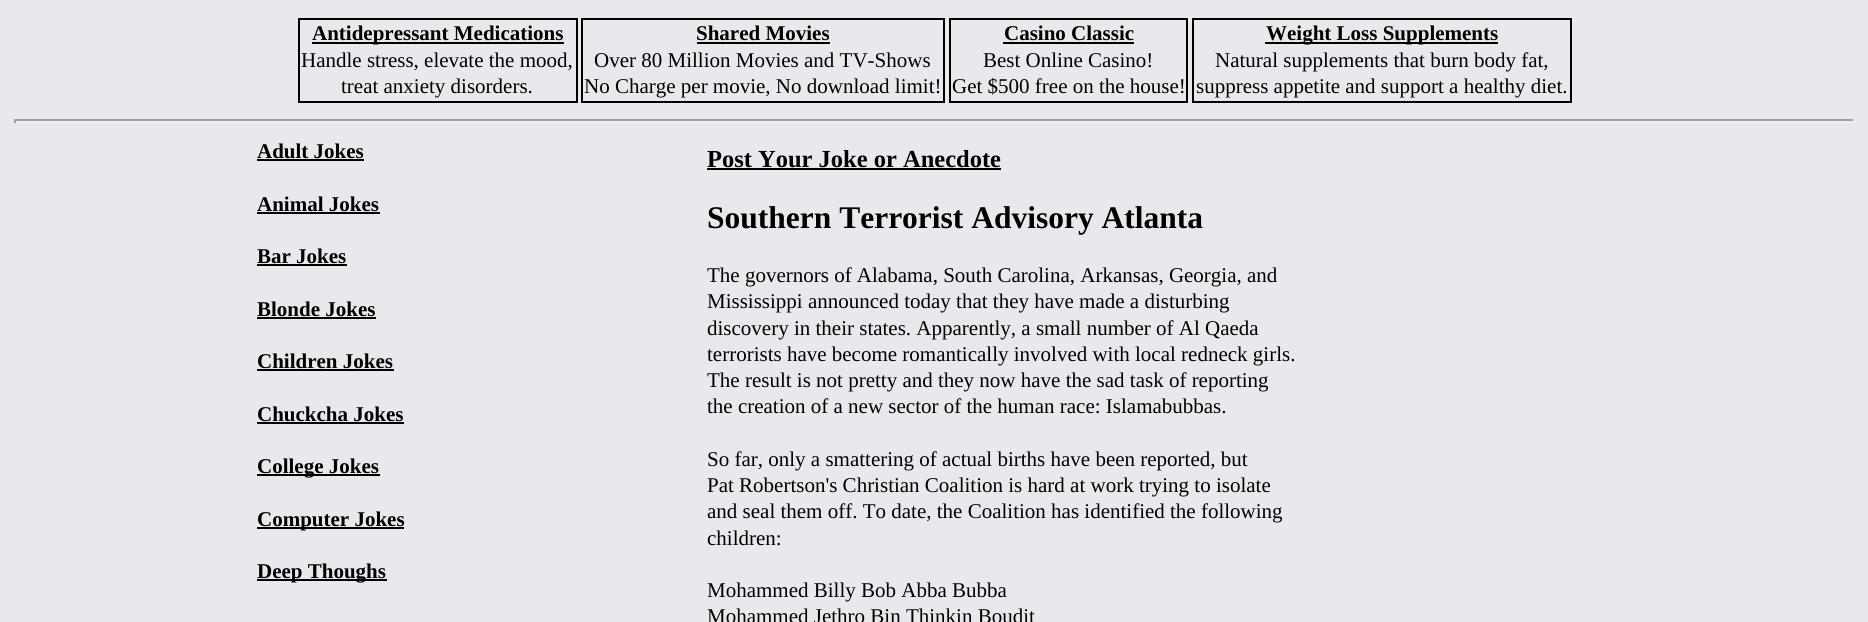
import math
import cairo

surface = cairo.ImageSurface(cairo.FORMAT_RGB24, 1868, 622)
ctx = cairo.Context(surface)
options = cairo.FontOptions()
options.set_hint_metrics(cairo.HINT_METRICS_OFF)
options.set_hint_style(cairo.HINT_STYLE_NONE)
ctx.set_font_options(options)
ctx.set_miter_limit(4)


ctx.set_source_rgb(0.91, 0.914, 0.922)
ctx.paint()
ctx.rectangle(299, 19, 278, 83)
ctx.set_source_rgb(0, 0, 0)
ctx.stroke()
ctx.rectangle(312, 42, 252, 2)
ctx.fill()
ctx.select_font_face("Liberation Serif", cairo.FONT_SLANT_NORMAL, cairo.FONT_WEIGHT_BOLD)
ctx.set_font_size(21)
ctx.move_to(312, 40)
ctx.show_text("Antidepressant Medications")
ctx.select_font_face("Liberation Serif")
ctx.move_to(301, 67)
ctx.show_text("Handle stress, elevate the mood,")
ctx.move_to(341, 93)
ctx.show_text("treat anxiety disorders.")
ctx.rectangle(582, 19, 362, 83)
ctx.stroke()
ctx.select_font_face("Liberation Serif", cairo.FONT_SLANT_NORMAL, cairo.FONT_WEIGHT_BOLD)
ctx.move_to(696, 40)
ctx.show_text("Shared Movies")
ctx.rectangle(697, 42, 133, 2)
ctx.fill()
ctx.select_font_face("Liberation Serif")
ctx.move_to(594, 67)
ctx.show_text("Over 80 Million Movies and TV-Shows")
ctx.move_to(584, 93)
ctx.show_text("No Charge per movie, No download limit!")
ctx.rectangle(950, 19, 237, 83)
ctx.stroke()
ctx.select_font_face("Liberation Serif", cairo.FONT_SLANT_NORMAL, cairo.FONT_WEIGHT_BOLD)
ctx.move_to(1004, 40)
ctx.show_text("Casino Classic")
ctx.rectangle(1003, 42, 131, 2)
ctx.fill()
ctx.select_font_face("Liberation Serif")
ctx.move_to(983, 67)
ctx.show_text("Best Online Casino!")
ctx.move_to(952, 93)
ctx.show_text("Get $500 free on the house!")
ctx.rectangle(1193, 19, 378, 83)
ctx.stroke()
ctx.rectangle(1265, 42, 233, 2)
ctx.fill()
ctx.select_font_face("Liberation Serif", cairo.FONT_SLANT_NORMAL, cairo.FONT_WEIGHT_BOLD)
ctx.move_to(1266, 40)
ctx.show_text("Weight Loss Supplements")
ctx.select_font_face("Liberation Serif")
ctx.move_to(1215, 67)
ctx.show_text("Natural supplements that burn body fat,")
ctx.move_to(1196, 93)
ctx.show_text("suppress appetite and support a healthy diet.")
ctx.set_source_rgb(0.624, 0.624, 0.624)
ctx.rectangle(14, 119, 1841, 2)
ctx.fill()
ctx.set_source_rgb(0.933, 0.933, 0.933)
ctx.rectangle(1853, 119, 2, 4)
ctx.fill()
ctx.rectangle(14, 121, 1841, 2)
ctx.fill()
ctx.set_source_rgb(0.624, 0.624, 0.624)
ctx.rectangle(14, 119, 2, 4)
ctx.fill()
ctx.select_font_face("Liberation Serif", cairo.FONT_SLANT_NORMAL, cairo.FONT_WEIGHT_BOLD)
ctx.set_source_rgb(0, 0, 0)
ctx.move_to(257, 158)
ctx.show_text("Adult Jokes")
ctx.rectangle(257, 159, 107, 2)
ctx.fill()
ctx.move_to(257, 211)
ctx.show_text("Animal Jokes")
ctx.rectangle(257, 212, 123, 2)
ctx.fill()
ctx.move_to(257, 263)
ctx.show_text("Bar Jokes")
ctx.rectangle(257, 264, 90, 2)
ctx.fill()
ctx.move_to(257, 316)
ctx.show_text("Blonde Jokes")
ctx.rectangle(257, 317, 119, 2)
ctx.fill()
ctx.move_to(257, 368)
ctx.show_text("Children Jokes")
ctx.rectangle(257, 369, 137, 2)
ctx.fill()
ctx.move_to(257, 421)
ctx.show_text("Chuckcha Jokes")
ctx.rectangle(257, 422, 147, 2)
ctx.fill()
ctx.rectangle(257, 474, 123, 2)
ctx.fill()
ctx.move_to(257, 473)
ctx.show_text("College Jokes")
ctx.rectangle(257, 527, 147, 2)
ctx.fill()
ctx.move_to(257, 526)
ctx.show_text("Computer Jokes")
ctx.rectangle(257, 579, 130, 2)
ctx.fill()
ctx.move_to(257, 578)
ctx.show_text("Deep Thoughs")
ctx.set_font_size(24.5)
ctx.move_to(707, 167)
ctx.show_text("Post Your Joke or Anecdote")
ctx.rectangle(707, 168, 294, 2)
ctx.fill()
ctx.set_font_size(31.5)
ctx.move_to(707, 228)
ctx.show_text("Southern Terrorist Advisory Atlanta")
ctx.select_font_face("Liberation Serif")
ctx.set_font_size(21)
ctx.move_to(707, 282)
ctx.show_text("The governors of Alabama, South Carolina, Arkansas, Georgia, and")
ctx.move_to(707, 308)
ctx.show_text("Mississippi announced today that they have made a disturbing")
ctx.move_to(707, 335)
ctx.show_text("discovery in their states. Apparently, a small number of Al Qaeda")
ctx.move_to(707, 361)
ctx.show_text("terrorists have become romantically involved with local redneck girls.")
ctx.move_to(707, 387)
ctx.show_text("The result is not pretty and they now have the sad task of reporting")
ctx.move_to(707, 413)
ctx.show_text("the creation of a new sector of the human race: Islamabubbas.")
ctx.move_to(707, 466)
ctx.show_text("So far, only a smattering of actual births have been reported, but")
ctx.move_to(707, 492)
ctx.show_text("Pat Robertson's Christian Coalition is hard at work trying to isolate")
ctx.move_to(707, 518)
ctx.show_text("and seal them off. To date, the Coalition has identified the following")
ctx.move_to(707, 545)
ctx.show_text("children:")
ctx.move_to(707, 597)
ctx.show_text("Mohammed Billy Bob Abba Bubba")
ctx.move_to(707, 623)
ctx.show_text("Mohammed Jethro Bin Thinkin Boudit")
surface.write_to_png("page.png")
